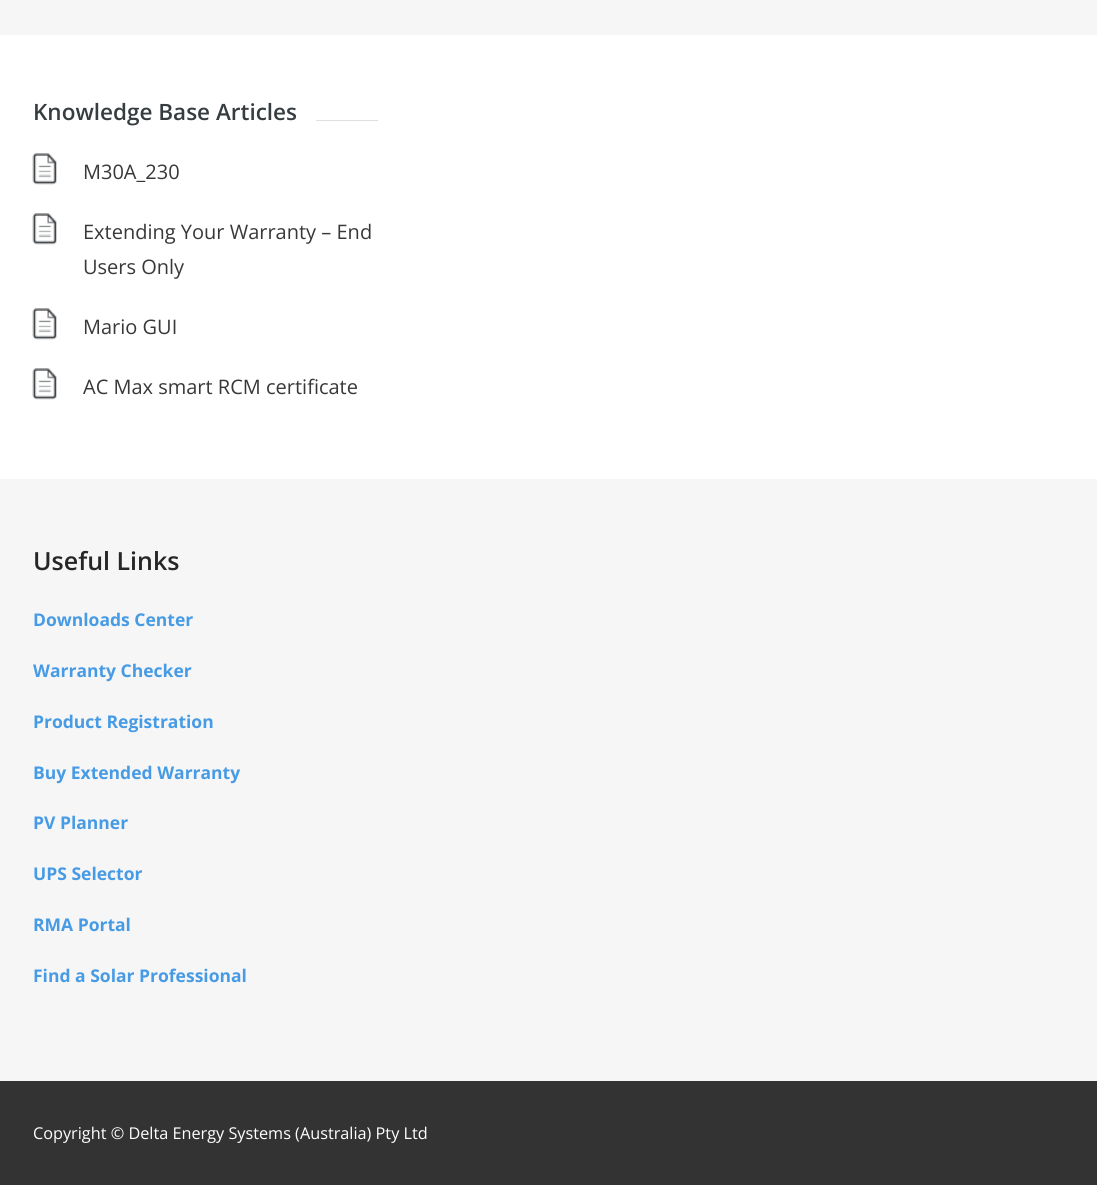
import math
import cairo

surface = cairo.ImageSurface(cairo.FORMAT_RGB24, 1097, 1185)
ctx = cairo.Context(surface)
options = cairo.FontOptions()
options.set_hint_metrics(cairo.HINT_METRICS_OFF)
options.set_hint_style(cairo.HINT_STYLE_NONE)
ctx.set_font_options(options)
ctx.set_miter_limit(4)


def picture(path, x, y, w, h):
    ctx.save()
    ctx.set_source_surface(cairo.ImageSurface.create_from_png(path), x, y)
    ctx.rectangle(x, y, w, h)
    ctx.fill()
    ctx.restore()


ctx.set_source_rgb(1, 1, 1)
ctx.paint()
ctx.set_source_rgb(0.961, 0.961, 0.961)
ctx.rectangle(0, 0, 1097, 35)
ctx.fill()
ctx.set_source_rgb(0.878, 0.878, 0.878)
ctx.rectangle(316, 120, 62, 1)
ctx.fill()
ctx.select_font_face("Open Sans SemiBold")
ctx.set_font_size(22.5)
ctx.set_source_rgb(0.212, 0.239, 0.251)
ctx.move_to(33, 120)
ctx.show_text("Knowledge Base Articles")
picture("img1.png", 32, 153, 25, 32)
ctx.select_font_face("Open Sans")
ctx.set_font_size(20)
ctx.set_source_rgb(0.22, 0.22, 0.22)
ctx.move_to(83, 179)
ctx.show_text("M30A_230")
picture("img2.png", 32, 213, 25, 32)
ctx.move_to(83, 239)
ctx.show_text("Extending Your Warranty – End")
ctx.move_to(83, 274)
ctx.show_text("Users Only")
picture("img2.png", 32, 308, 25, 32)
ctx.move_to(83, 334)
ctx.show_text("Mario GUI")
picture("img2.png", 32, 368, 25, 32)
ctx.move_to(83, 394)
ctx.show_text("AC Max smart RCM certificate")
ctx.set_source_rgb(0.961, 0.961, 0.961)
ctx.rectangle(0, 479, 1097, 602)
ctx.fill()
ctx.select_font_face("Open Sans SemiBold")
ctx.set_font_size(25)
ctx.set_source_rgb(0.149, 0.149, 0.149)
ctx.move_to(33, 570)
ctx.show_text("Useful Links")
ctx.select_font_face("Open Sans", cairo.FONT_SLANT_NORMAL, cairo.FONT_WEIGHT_BOLD)
ctx.set_font_size(17.5)
ctx.set_source_rgb(0.278, 0.608, 0.898)
ctx.move_to(33, 626)
ctx.show_text("Downloads Center")
ctx.move_to(33, 677)
ctx.show_text("Warranty Checker")
ctx.move_to(33, 728)
ctx.show_text("Product Registration")
ctx.move_to(33, 779)
ctx.show_text("Buy Extended Warranty")
ctx.move_to(33, 829)
ctx.show_text("PV Planner")
ctx.move_to(33, 880)
ctx.show_text("UPS Selector")
ctx.move_to(33, 931)
ctx.show_text("RMA Portal")
ctx.move_to(33, 982)
ctx.show_text("Find a Solar Professional")
ctx.set_source_rgb(0.2, 0.2, 0.2)
ctx.rectangle(0, 1081, 1097, 104)
ctx.fill()
ctx.select_font_face("Open Sans")
ctx.set_font_size(16.25)
ctx.set_source_rgb(1, 1, 1)
ctx.move_to(33, 1139)
ctx.show_text("Copyright © Delta Energy Systems (Australia) Pty Ltd")
surface.write_to_png("page.png")
